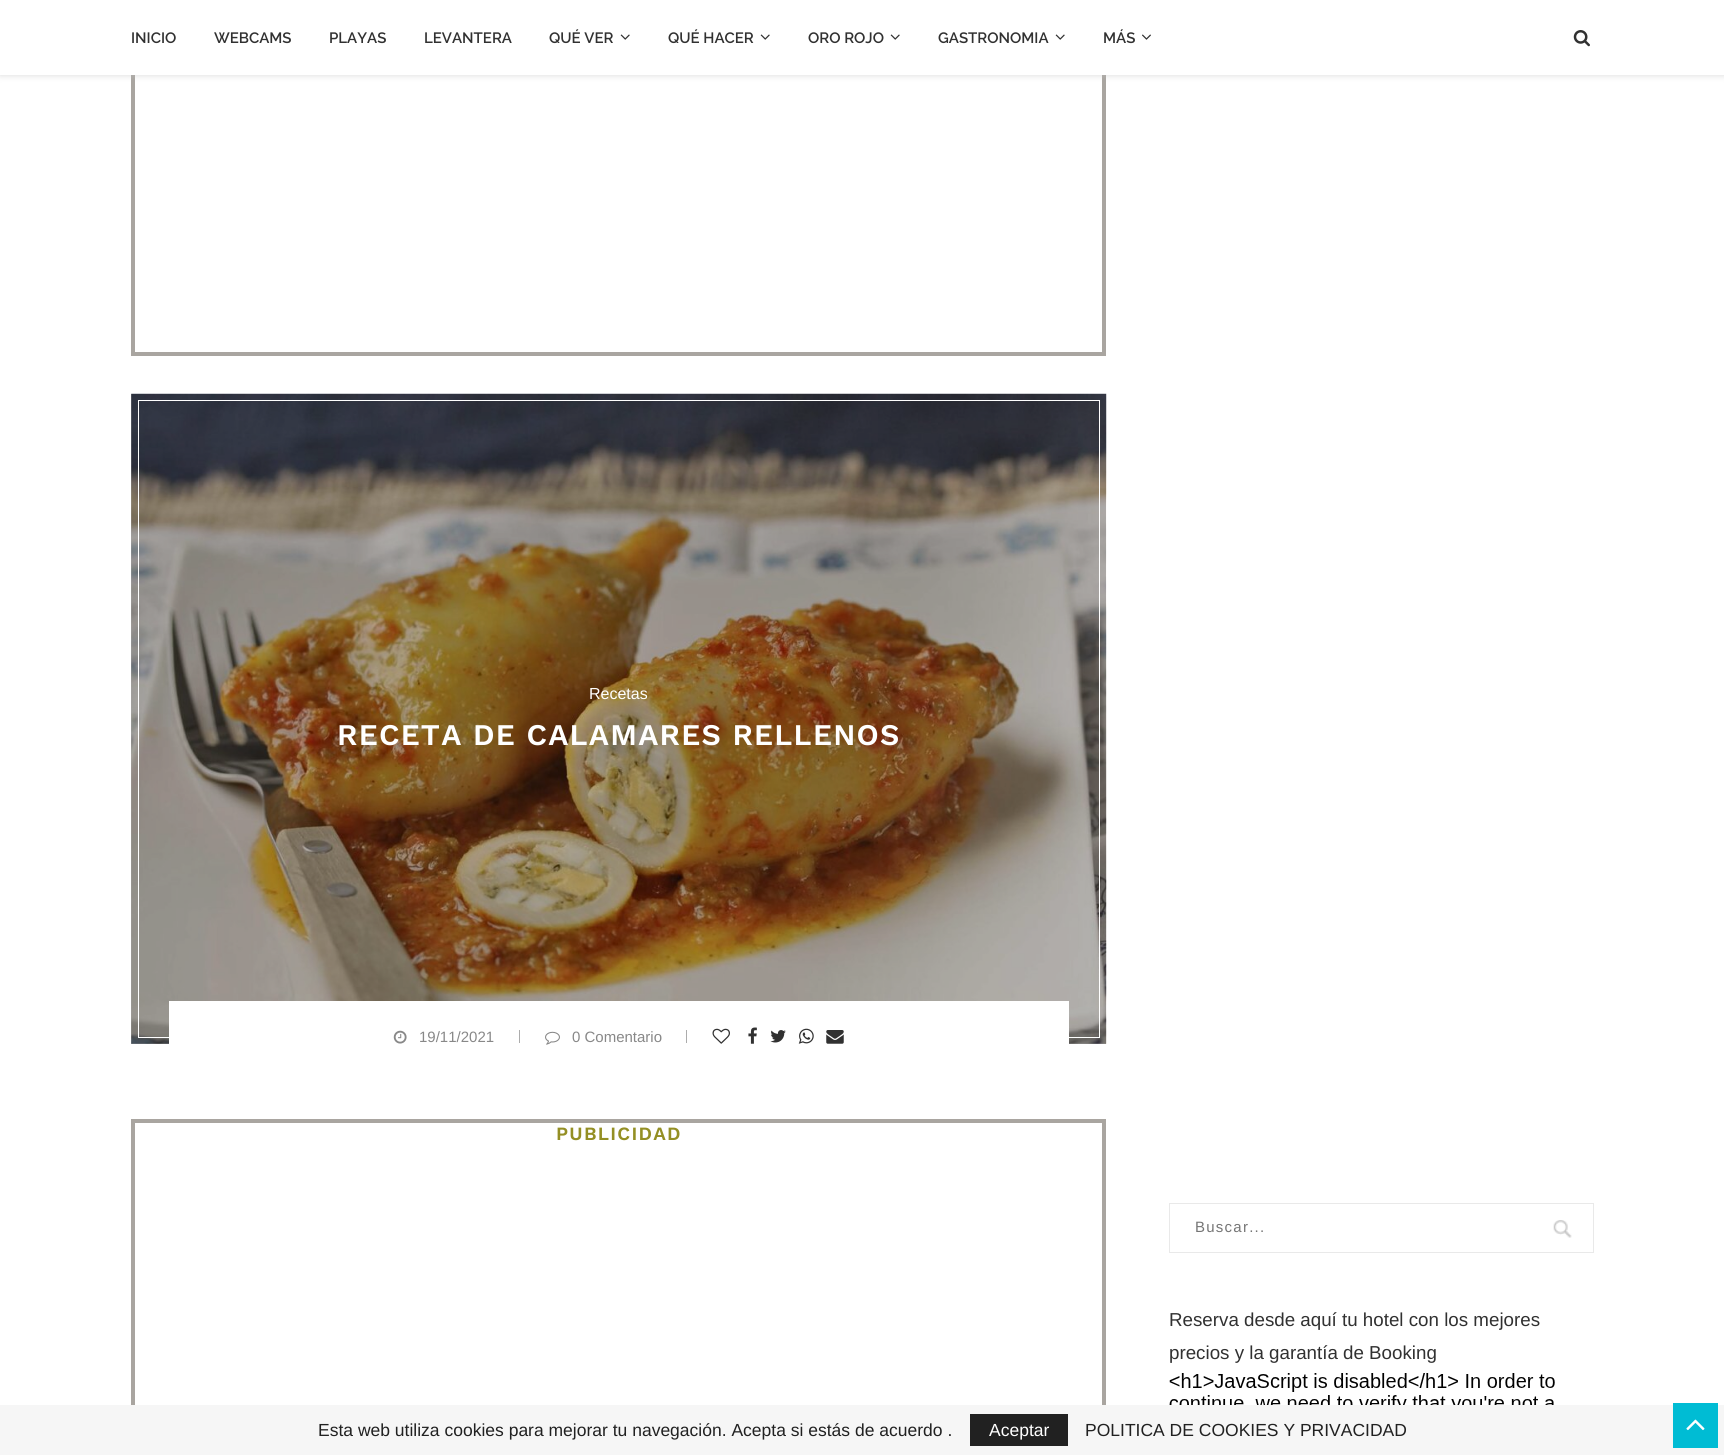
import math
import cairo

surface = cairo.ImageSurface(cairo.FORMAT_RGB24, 1724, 1455)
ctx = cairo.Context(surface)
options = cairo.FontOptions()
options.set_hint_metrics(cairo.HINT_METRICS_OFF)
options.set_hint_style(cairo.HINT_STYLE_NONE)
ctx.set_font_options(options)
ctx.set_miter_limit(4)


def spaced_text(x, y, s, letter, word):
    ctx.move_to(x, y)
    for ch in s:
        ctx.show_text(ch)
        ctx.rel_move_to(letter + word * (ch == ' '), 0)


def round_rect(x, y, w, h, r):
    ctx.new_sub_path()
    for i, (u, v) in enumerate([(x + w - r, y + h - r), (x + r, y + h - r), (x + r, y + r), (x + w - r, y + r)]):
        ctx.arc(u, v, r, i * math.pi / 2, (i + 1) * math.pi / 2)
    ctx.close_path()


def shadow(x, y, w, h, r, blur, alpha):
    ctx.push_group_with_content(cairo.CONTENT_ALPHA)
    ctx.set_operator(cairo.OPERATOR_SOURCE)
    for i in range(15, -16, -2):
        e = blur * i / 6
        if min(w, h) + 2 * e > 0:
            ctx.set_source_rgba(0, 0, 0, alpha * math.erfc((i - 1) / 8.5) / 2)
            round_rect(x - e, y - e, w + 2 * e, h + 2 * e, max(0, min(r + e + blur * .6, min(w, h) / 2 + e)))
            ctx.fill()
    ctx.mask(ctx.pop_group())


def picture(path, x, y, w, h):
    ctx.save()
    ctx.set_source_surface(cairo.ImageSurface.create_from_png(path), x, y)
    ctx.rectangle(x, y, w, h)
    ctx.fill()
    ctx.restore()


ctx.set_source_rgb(1, 1, 1)
ctx.paint()
ctx.rectangle(133, -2, 971, 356)
ctx.set_source_rgb(0.663, 0.647, 0.627)
ctx.set_line_width(4)
ctx.stroke()
ctx.set_source_rgb(0.745, 0.745, 0.745)
shadow(0, 1, 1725, 75, 0, 3, 0.46)
ctx.set_source_rgb(1, 1, 1)
ctx.rectangle(0, 0, 1724, 75)
ctx.fill()
ctx.select_font_face("Raleway SemiBold")
ctx.set_font_size(15)
ctx.set_source_rgb(0.192, 0.192, 0.192)
ctx.move_to(131, 43)
ctx.show_text("INICIO")
ctx.move_to(214, 43)
ctx.show_text("WEBCAMS")
ctx.move_to(329, 43)
ctx.show_text("PLAYAS")
ctx.move_to(424, 43)
ctx.show_text("LEVANTERA")
ctx.move_to(549, 43)
ctx.show_text("QUÉ VER")
picture("img1.png", 620, 34, 10, 6)
ctx.move_to(668, 43)
ctx.show_text("QUÉ HACER")
picture("img1.png", 760, 34, 10, 6)
ctx.move_to(808, 43)
ctx.show_text("ORO ROJO")
picture("img1.png", 890, 34, 10, 6)
ctx.move_to(938, 43)
ctx.show_text("GASTRONOMIA")
picture("img1.png", 1055, 34, 10, 6)
ctx.move_to(1103, 43)
ctx.show_text("MÁS")
picture("img2.png", 1142, 34, 9, 6)
picture("img3.png", 1573, 30, 17, 17)
ctx.set_source_rgb(0.675, 0.675, 0.675)
ctx.rectangle(131, 394, 975, 650)
ctx.fill()
picture("img4.png", 131, 393, 976, 651)
ctx.rectangle(138.5, 400.5, 961, 637)
ctx.set_source_rgb(1, 1, 1)
ctx.set_line_width(1)
ctx.stroke()
ctx.select_font_face("Liberation Sans")
ctx.set_font_size(16)
ctx.move_to(589, 699)
ctx.show_text("Recetas")
ctx.select_font_face("Work Sans SemiBold")
ctx.set_font_size(30)
spaced_text(337, 745, "RECETA DE CALAMARES RELLENOS", 1.25, 0)
ctx.rectangle(169, 1001, 900, 43)
ctx.fill()
picture("img5.png", 393, 1030, 14, 14)
ctx.select_font_face("Liberation Sans")
ctx.set_font_size(15)
ctx.set_source_rgb(0.533, 0.533, 0.533)
ctx.move_to(419, 1042)
ctx.show_text("19/11/2021")
ctx.set_source_rgb(0.675, 0.675, 0.675)
ctx.rectangle(519, 1030, 1, 13)
ctx.fill()
picture("img6.png", 545, 1031, 15, 14)
ctx.set_source_rgb(0.533, 0.533, 0.533)
ctx.move_to(572, 1042)
ctx.show_text("0 Comentario")
ctx.set_source_rgb(0.675, 0.675, 0.675)
ctx.rectangle(686, 1030, 1, 13)
ctx.fill()
picture("img7.png", 712, 1028, 18, 16)
picture("img8.png", 748, 1027, 9, 17)
picture("img9.png", 770, 1030, 16, 13)
picture("img10.png", 798, 1028, 16, 16)
picture("img11.png", 826, 1030, 18, 14)
ctx.rectangle(133, 1121, 971, 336)
ctx.set_source_rgb(0.663, 0.647, 0.627)
ctx.set_line_width(4)
ctx.stroke()
ctx.select_font_face("Work Sans SemiBold")
ctx.set_font_size(18.75)
ctx.set_source_rgb(0.58, 0.561, 0.141)
spaced_text(556, 1140, "PUBLICIDAD", 1.25, 0)
picture("img12.png", 1553, 1220, 19, 18)
ctx.rectangle(1169.5, 1203.5, 424, 49)
ctx.set_source_rgb(0.914, 0.914, 0.914)
ctx.set_line_width(1)
ctx.stroke()
ctx.select_font_face("Liberation Sans")
ctx.set_font_size(15)
ctx.set_source_rgb(0.459, 0.459, 0.459)
spaced_text(1195, 1232, "Buscar...", 1.25, 0)
ctx.set_font_size(18.75)
ctx.set_source_rgb(0.192, 0.192, 0.192)
ctx.move_to(1169, 1326)
ctx.show_text("Reserva desde aquí tu hotel con los mejores")
ctx.move_to(1169, 1359)
ctx.show_text("precios y la garantía de Booking")
picture("img13.png", 1169, 1373, 386, 32)
ctx.set_source_rgb(0.961, 0.961, 0.961)
ctx.rectangle(0, 1405, 1724, 50)
ctx.fill()
ctx.set_source_rgb(0, 0.737, 0.831)
ctx.rectangle(1673, 1403, 45, 45)
ctx.fill()
picture("img14.png", 1686, 1419, 19, 12)
ctx.set_font_size(17.5)
ctx.set_source_rgb(0.129, 0.129, 0.129)
ctx.move_to(318, 1436)
ctx.show_text("Esta web utiliza cookies para mejorar tu navegación. Acepta si estás de acuerdo .")
ctx.rectangle(970, 1414, 98, 32)
ctx.fill()
ctx.set_source_rgb(1, 1, 1)
ctx.move_to(989, 1436)
ctx.show_text("Aceptar")
ctx.set_source_rgb(0.129, 0.129, 0.129)
ctx.move_to(1085, 1436)
ctx.show_text("POLITICA DE COOKIES Y PRIVACIDAD")
surface.write_to_png("page.png")
